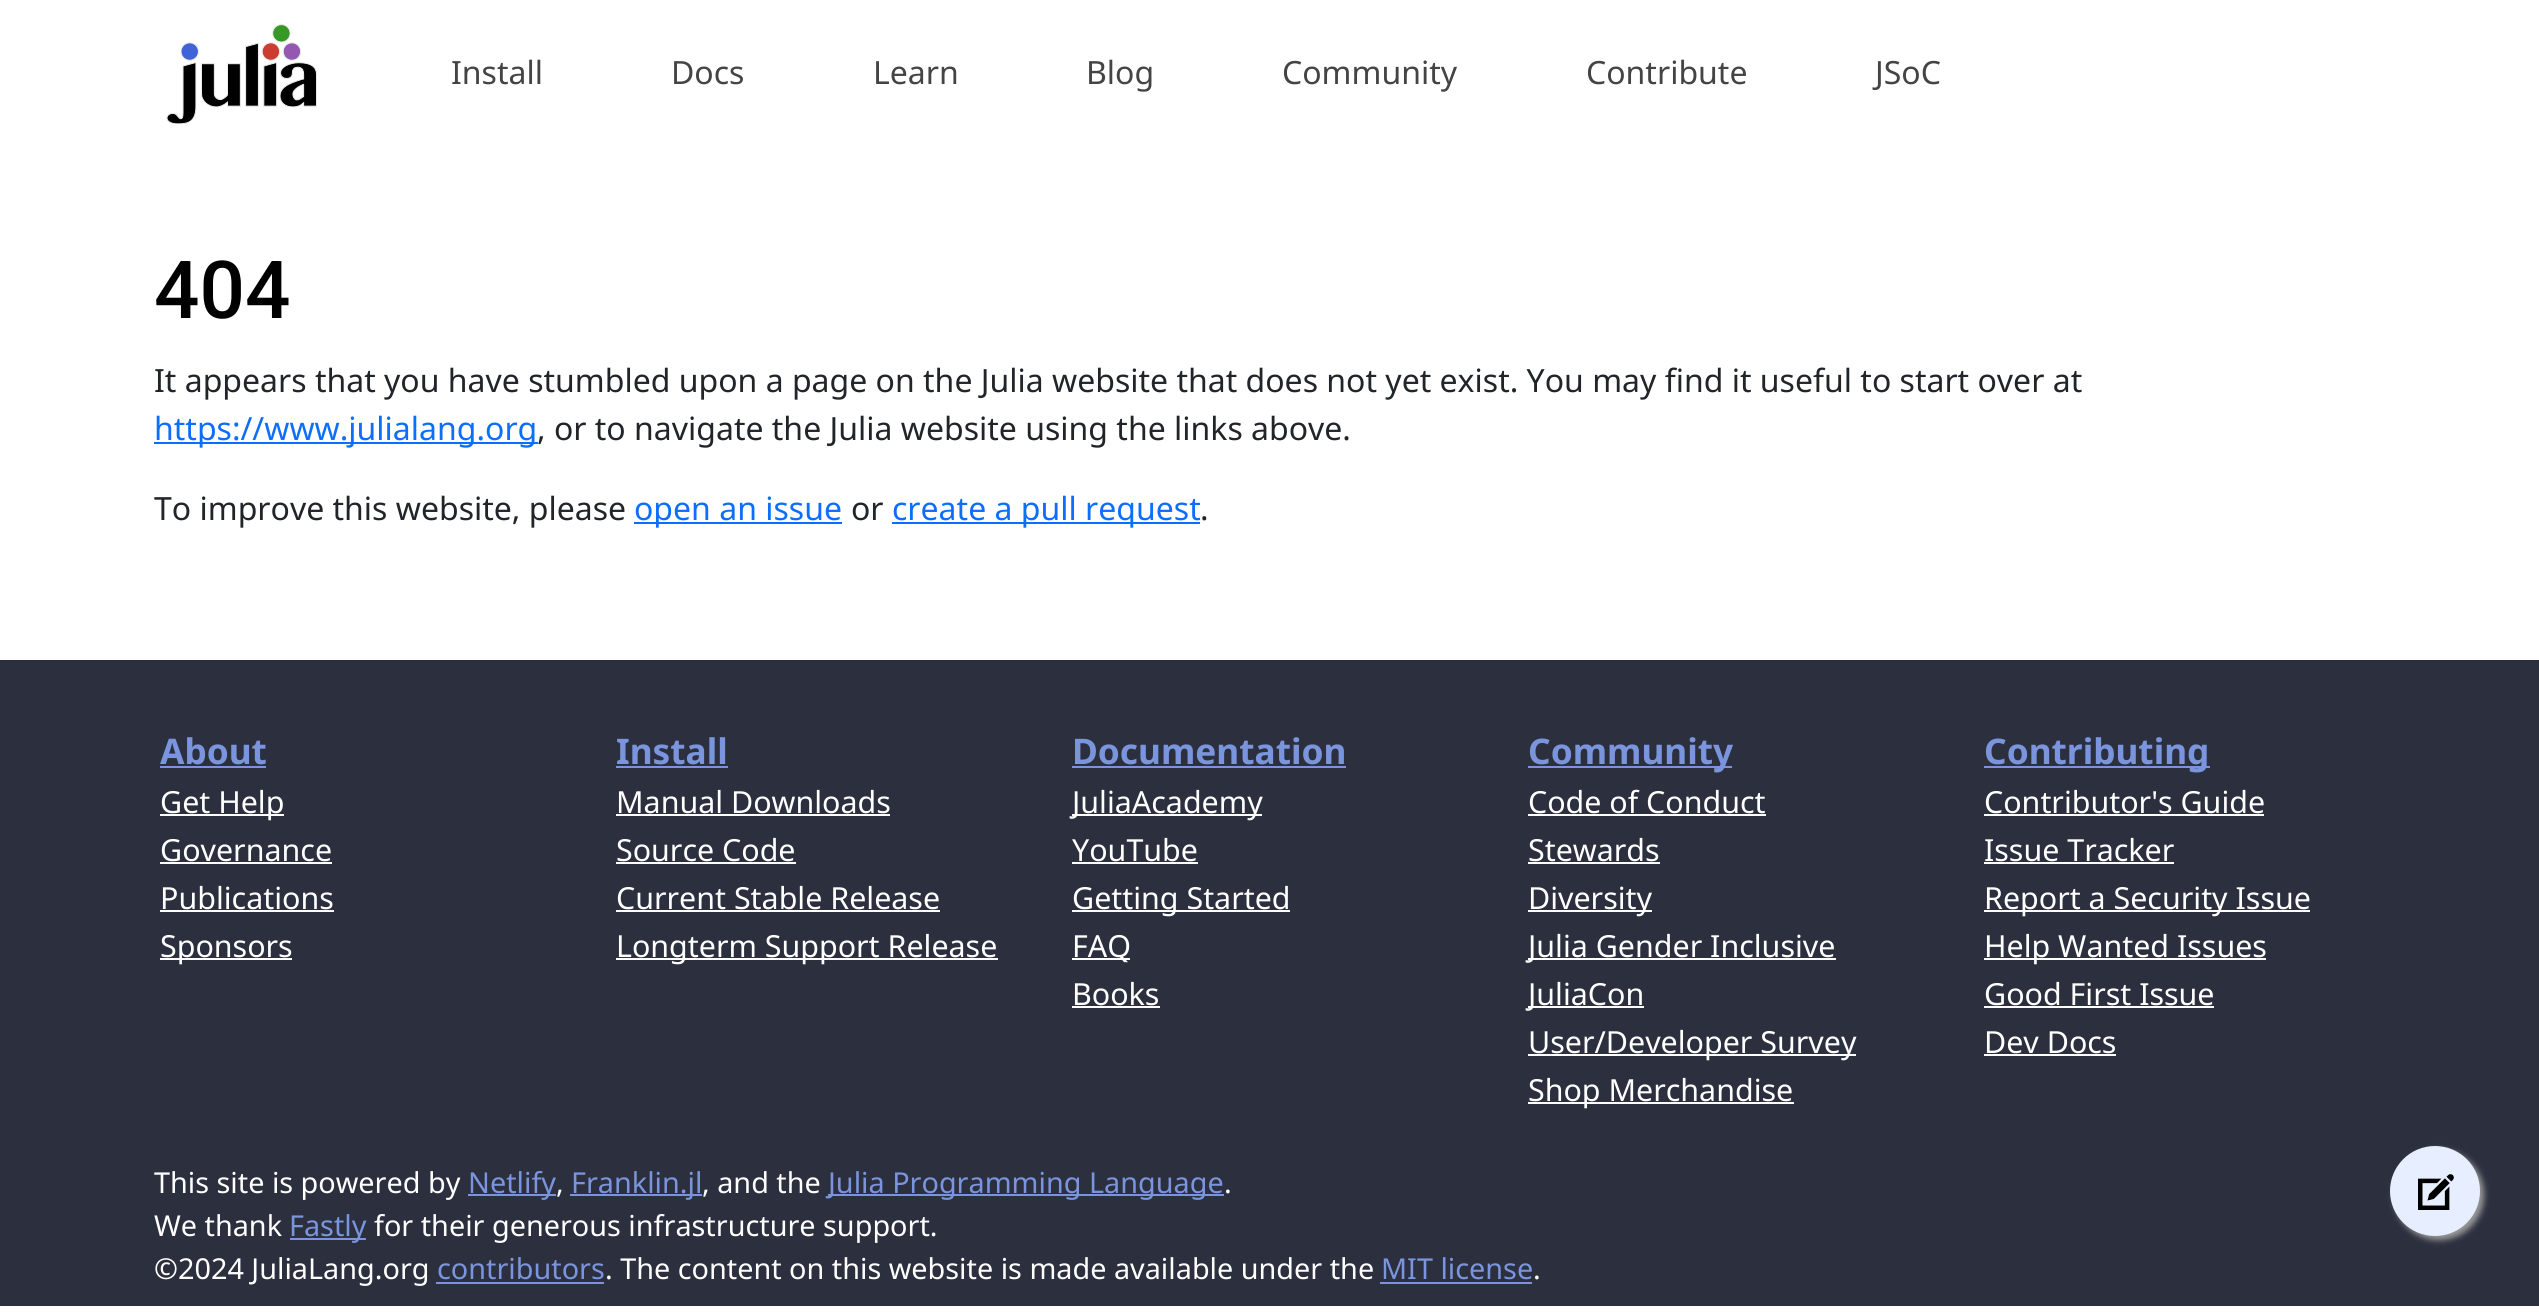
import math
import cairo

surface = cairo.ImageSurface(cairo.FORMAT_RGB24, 2539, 1315)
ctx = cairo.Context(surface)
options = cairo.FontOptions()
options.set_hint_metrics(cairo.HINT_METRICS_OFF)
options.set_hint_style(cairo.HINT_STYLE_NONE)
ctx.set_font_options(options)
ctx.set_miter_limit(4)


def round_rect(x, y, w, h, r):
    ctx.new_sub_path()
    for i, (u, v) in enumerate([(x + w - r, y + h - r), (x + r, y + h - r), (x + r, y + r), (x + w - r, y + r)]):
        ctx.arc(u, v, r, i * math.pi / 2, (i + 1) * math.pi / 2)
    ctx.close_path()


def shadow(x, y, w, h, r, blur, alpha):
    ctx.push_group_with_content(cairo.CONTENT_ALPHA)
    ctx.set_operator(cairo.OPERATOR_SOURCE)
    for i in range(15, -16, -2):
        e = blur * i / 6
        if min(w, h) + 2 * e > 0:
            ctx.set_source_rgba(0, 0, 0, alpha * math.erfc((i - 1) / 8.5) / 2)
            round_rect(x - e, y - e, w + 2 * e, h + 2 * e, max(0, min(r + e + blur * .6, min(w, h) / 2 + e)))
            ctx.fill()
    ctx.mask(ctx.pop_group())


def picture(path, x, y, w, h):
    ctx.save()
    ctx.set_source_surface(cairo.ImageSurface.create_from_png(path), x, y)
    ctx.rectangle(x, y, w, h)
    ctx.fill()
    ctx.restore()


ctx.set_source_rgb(1, 1, 1)
ctx.paint()
picture("img1.png", 166, 24, 151, 100)
ctx.select_font_face("Noto Sans")
ctx.set_font_size(32)
ctx.set_source_rgb(0.267, 0.267, 0.267)
ctx.move_to(451, 84)
ctx.show_text("Install")
ctx.move_to(671, 84)
ctx.show_text("Docs")
ctx.move_to(873, 84)
ctx.show_text("Learn")
ctx.move_to(1086, 84)
ctx.show_text("Blog")
ctx.move_to(1282, 84)
ctx.show_text("Community")
ctx.move_to(1586, 84)
ctx.show_text("Contribute")
ctx.move_to(1875, 84)
ctx.show_text("JSoC")
ctx.select_font_face("Roboto Medium")
ctx.set_font_size(80)
ctx.set_source_rgb(0, 0, 0)
ctx.move_to(154, 318)
ctx.show_text("404")
ctx.select_font_face("Noto Sans")
ctx.set_font_size(32)
ctx.set_source_rgb(0.129, 0.145, 0.161)
ctx.move_to(154, 392)
ctx.show_text("It appears that you have stumbled upon a page on the Julia website that does not yet exist. You may find it useful to start over at")
ctx.set_source_rgb(0.051, 0.431, 0.992)
ctx.rectangle(154, 442, 384, 2)
ctx.fill()
ctx.move_to(154, 440)
ctx.show_text("https://www.julialang.org")
ctx.set_source_rgb(0.129, 0.145, 0.161)
ctx.move_to(537, 440)
ctx.show_text(", or to navigate the Julia website using the links above.")
ctx.move_to(154, 520)
ctx.show_text("To improve this website, please")
ctx.set_source_rgb(0.051, 0.431, 0.992)
ctx.rectangle(634, 522, 208, 2)
ctx.fill()
ctx.move_to(634, 520)
ctx.show_text("open an issue")
ctx.set_source_rgb(0.129, 0.145, 0.161)
ctx.move_to(851, 520)
ctx.show_text("or")
ctx.set_source_rgb(0.051, 0.431, 0.992)
ctx.rectangle(892, 522, 308, 2)
ctx.fill()
ctx.move_to(892, 520)
ctx.show_text("create a pull request")
ctx.set_source_rgb(0.129, 0.145, 0.161)
ctx.move_to(1200, 520)
ctx.show_text(".")
ctx.set_source_rgb(0.173, 0.184, 0.243)
ctx.rectangle(0, 660, 2539, 646)
ctx.fill()
ctx.select_font_face("Noto Sans", cairo.FONT_SLANT_NORMAL, cairo.FONT_WEIGHT_BOLD)
ctx.set_font_size(35.25)
ctx.set_source_rgb(0.478, 0.584, 0.867)
ctx.move_to(160, 764)
ctx.show_text("About")
ctx.rectangle(160, 766, 106, 2)
ctx.fill()
ctx.set_source_rgb(1, 1, 1)
ctx.rectangle(160, 814, 124, 2)
ctx.fill()
ctx.select_font_face("Noto Sans")
ctx.set_font_size(30.4)
ctx.move_to(160, 813)
ctx.show_text("Get Help")
ctx.move_to(160, 861)
ctx.show_text("Governance")
ctx.rectangle(160, 862, 172, 2)
ctx.fill()
ctx.move_to(160, 909)
ctx.show_text("Publications")
ctx.rectangle(160, 910, 174, 2)
ctx.fill()
ctx.rectangle(160, 958, 132, 2)
ctx.fill()
ctx.move_to(160, 957)
ctx.show_text("Sponsors")
ctx.select_font_face("Noto Sans", cairo.FONT_SLANT_NORMAL, cairo.FONT_WEIGHT_BOLD)
ctx.set_font_size(35.25)
ctx.set_source_rgb(0.478, 0.584, 0.867)
ctx.move_to(616, 764)
ctx.show_text("Install")
ctx.rectangle(616, 766, 112, 2)
ctx.fill()
ctx.select_font_face("Noto Sans")
ctx.set_font_size(30.4)
ctx.set_source_rgb(1, 1, 1)
ctx.move_to(616, 813)
ctx.show_text("Manual Downloads")
ctx.rectangle(616, 814, 274, 2)
ctx.fill()
ctx.move_to(616, 861)
ctx.show_text("Source Code")
ctx.rectangle(616, 862, 180, 2)
ctx.fill()
ctx.move_to(616, 909)
ctx.show_text("Current Stable Release")
ctx.rectangle(616, 910, 324, 2)
ctx.fill()
ctx.rectangle(616, 958, 382, 2)
ctx.fill()
ctx.move_to(616, 957)
ctx.show_text("Longterm Support Release")
ctx.select_font_face("Noto Sans", cairo.FONT_SLANT_NORMAL, cairo.FONT_WEIGHT_BOLD)
ctx.set_font_size(35.25)
ctx.set_source_rgb(0.478, 0.584, 0.867)
ctx.move_to(1072, 764)
ctx.show_text("Documentation")
ctx.rectangle(1072, 766, 274, 2)
ctx.fill()
ctx.set_source_rgb(1, 1, 1)
ctx.rectangle(1072, 814, 190, 2)
ctx.fill()
ctx.select_font_face("Noto Sans")
ctx.set_font_size(30.4)
ctx.move_to(1072, 813)
ctx.show_text("JuliaAcademy")
ctx.move_to(1072, 861)
ctx.show_text("YouTube")
ctx.rectangle(1072, 862, 126, 2)
ctx.fill()
ctx.rectangle(1072, 910, 218, 2)
ctx.fill()
ctx.move_to(1072, 909)
ctx.show_text("Getting Started")
ctx.rectangle(1072, 958, 58, 2)
ctx.fill()
ctx.move_to(1072, 957)
ctx.show_text("FAQ")
ctx.move_to(1072, 1005)
ctx.show_text("Books")
ctx.rectangle(1072, 1006, 88, 2)
ctx.fill()
ctx.set_source_rgb(0.478, 0.584, 0.867)
ctx.rectangle(1528, 766, 204, 2)
ctx.fill()
ctx.select_font_face("Noto Sans", cairo.FONT_SLANT_NORMAL, cairo.FONT_WEIGHT_BOLD)
ctx.set_font_size(35.25)
ctx.move_to(1528, 764)
ctx.show_text("Community")
ctx.select_font_face("Noto Sans")
ctx.set_font_size(30.4)
ctx.set_source_rgb(1, 1, 1)
ctx.move_to(1528, 813)
ctx.show_text("Code of Conduct")
ctx.rectangle(1528, 814, 238, 2)
ctx.fill()
ctx.move_to(1528, 861)
ctx.show_text("Stewards")
ctx.rectangle(1528, 862, 132, 2)
ctx.fill()
ctx.rectangle(1528, 910, 124, 2)
ctx.fill()
ctx.move_to(1528, 909)
ctx.show_text("Diversity")
ctx.rectangle(1528, 958, 308, 2)
ctx.fill()
ctx.move_to(1528, 957)
ctx.show_text("Julia Gender Inclusive")
ctx.rectangle(1528, 1006, 116, 2)
ctx.fill()
ctx.move_to(1528, 1005)
ctx.show_text("JuliaCon")
ctx.rectangle(1528, 1054, 328, 2)
ctx.fill()
ctx.move_to(1528, 1053)
ctx.show_text("User/Developer Survey")
ctx.rectangle(1528, 1102, 266, 2)
ctx.fill()
ctx.move_to(1528, 1101)
ctx.show_text("Shop Merchandise")
ctx.set_source_rgb(0.478, 0.584, 0.867)
ctx.rectangle(1984, 766, 226, 2)
ctx.fill()
ctx.select_font_face("Noto Sans", cairo.FONT_SLANT_NORMAL, cairo.FONT_WEIGHT_BOLD)
ctx.set_font_size(35.25)
ctx.move_to(1984, 764)
ctx.show_text("Contributing")
ctx.select_font_face("Noto Sans")
ctx.set_font_size(30.4)
ctx.set_source_rgb(1, 1, 1)
ctx.move_to(1984, 813)
ctx.show_text("Contributor's Guide")
ctx.rectangle(1984, 814, 280, 2)
ctx.fill()
ctx.move_to(1984, 861)
ctx.show_text("Issue Tracker")
ctx.rectangle(1984, 862, 190, 2)
ctx.fill()
ctx.rectangle(1984, 910, 326, 2)
ctx.fill()
ctx.move_to(1984, 909)
ctx.show_text("Report a Security Issue")
ctx.rectangle(1984, 958, 282, 2)
ctx.fill()
ctx.move_to(1984, 957)
ctx.show_text("Help Wanted Issues")
ctx.move_to(1984, 1005)
ctx.show_text("Good First Issue")
ctx.rectangle(1984, 1006, 230, 2)
ctx.fill()
ctx.move_to(1984, 1053)
ctx.show_text("Dev Docs")
ctx.rectangle(1984, 1054, 132, 2)
ctx.fill()
ctx.set_font_size(28.8)
ctx.move_to(154, 1193)
ctx.show_text("This site is powered by")
ctx.set_source_rgb(0.478, 0.584, 0.867)
ctx.rectangle(468, 1194, 88, 2)
ctx.fill()
ctx.move_to(468, 1193)
ctx.show_text("Netlify")
ctx.set_source_rgb(1, 1, 1)
ctx.move_to(556, 1193)
ctx.show_text(",")
ctx.set_source_rgb(0.478, 0.584, 0.867)
ctx.rectangle(570, 1194, 132, 2)
ctx.fill()
ctx.move_to(571, 1193)
ctx.show_text("Franklin.jl")
ctx.set_source_rgb(1, 1, 1)
ctx.move_to(702, 1193)
ctx.show_text(", and the")
ctx.set_source_rgb(0.478, 0.584, 0.867)
ctx.rectangle(828, 1194, 396, 2)
ctx.fill()
ctx.move_to(828, 1193)
ctx.show_text("Julia Programming Language")
ctx.set_source_rgb(1, 1, 1)
ctx.move_to(1224, 1193)
ctx.show_text(".")
ctx.move_to(154, 1236)
ctx.show_text("We thank")
ctx.set_source_rgb(0.478, 0.584, 0.867)
ctx.rectangle(290, 1238, 76, 2)
ctx.fill()
ctx.move_to(289, 1236)
ctx.show_text("Fastly")
ctx.set_source_rgb(1, 1, 1)
ctx.move_to(374, 1236)
ctx.show_text("for their generous infrastructure support.")
ctx.move_to(154, 1279)
ctx.show_text("©2024 JuliaLang.org")
ctx.set_source_rgb(0.478, 0.584, 0.867)
ctx.move_to(437, 1279)
ctx.show_text("contributors")
ctx.rectangle(436, 1282, 168, 2)
ctx.fill()
ctx.set_source_rgb(1, 1, 1)
ctx.move_to(605, 1279)
ctx.show_text(". The content on this website is made available under the")
ctx.set_source_rgb(0.478, 0.584, 0.867)
ctx.move_to(1381, 1279)
ctx.show_text("MIT license")
ctx.rectangle(1380, 1282, 152, 2)
ctx.fill()
ctx.set_source_rgb(1, 1, 1)
ctx.move_to(1533, 1279)
ctx.show_text(".")
ctx.set_source_rgb(0.6, 0.6, 0.6)
shadow(2394, 1150, 90, 90, 45, 3, 1)
ctx.set_source_rgb(0.902, 0.933, 1)
ctx.arc(2435, 1191, 45, 0, 2 * math.pi)
ctx.fill()
picture("img2.png", 2418, 1174, 36, 36)
surface.write_to_png("page.png")
